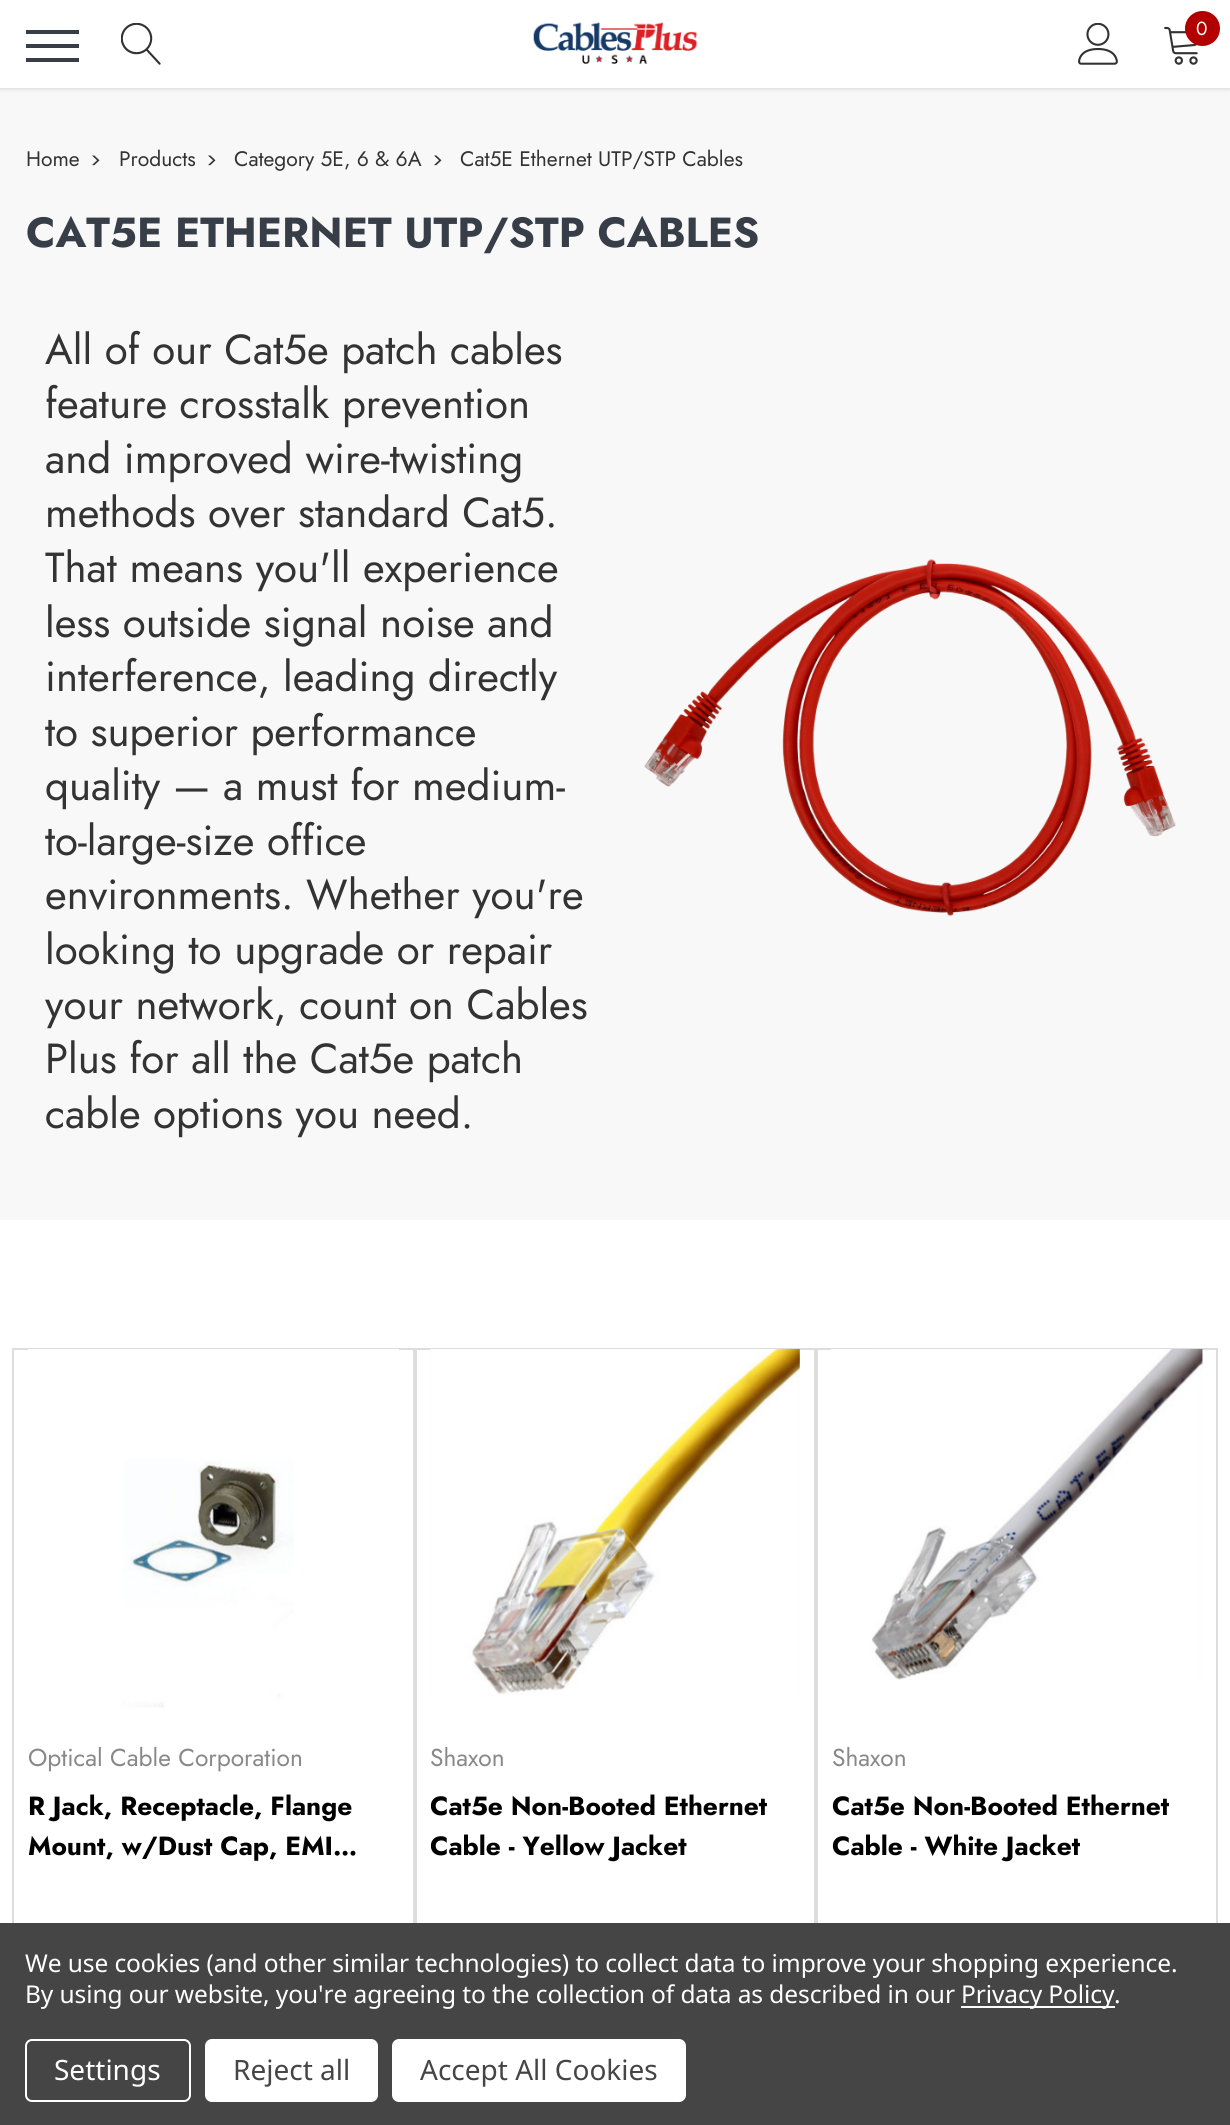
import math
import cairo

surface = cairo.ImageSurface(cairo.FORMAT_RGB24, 1230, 2125)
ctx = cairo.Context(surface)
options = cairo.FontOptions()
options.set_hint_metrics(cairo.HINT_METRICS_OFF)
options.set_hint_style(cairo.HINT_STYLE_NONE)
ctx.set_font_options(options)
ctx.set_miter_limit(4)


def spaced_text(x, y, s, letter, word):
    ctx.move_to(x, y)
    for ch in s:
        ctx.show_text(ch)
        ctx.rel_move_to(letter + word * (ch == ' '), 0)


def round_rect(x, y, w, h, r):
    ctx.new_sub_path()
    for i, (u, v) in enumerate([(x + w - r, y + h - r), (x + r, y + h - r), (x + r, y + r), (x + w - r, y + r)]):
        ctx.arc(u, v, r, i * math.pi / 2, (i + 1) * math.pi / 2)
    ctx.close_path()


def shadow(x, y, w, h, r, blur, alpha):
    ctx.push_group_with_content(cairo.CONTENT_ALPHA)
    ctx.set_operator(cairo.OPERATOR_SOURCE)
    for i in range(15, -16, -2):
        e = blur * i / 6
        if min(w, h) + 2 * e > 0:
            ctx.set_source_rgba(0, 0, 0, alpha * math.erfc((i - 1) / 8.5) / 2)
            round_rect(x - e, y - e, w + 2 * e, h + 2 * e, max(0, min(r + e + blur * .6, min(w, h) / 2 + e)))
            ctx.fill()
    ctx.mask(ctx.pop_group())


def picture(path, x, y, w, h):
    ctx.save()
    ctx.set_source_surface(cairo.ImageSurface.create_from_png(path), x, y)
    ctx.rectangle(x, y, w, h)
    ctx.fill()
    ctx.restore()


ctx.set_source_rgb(1, 1, 1)
ctx.paint()
ctx.set_source_rgb(0.969, 0.969, 0.969)
ctx.rectangle(0, 88, 1230, 1132)
ctx.fill()
ctx.set_source_rgb(0, 0, 0)
shadow(0, 2, 1230, 87, 0, 2, 0.15)
ctx.set_source_rgb(1, 1, 1)
ctx.rectangle(0, 0, 1230, 88)
ctx.fill()
ctx.set_source_rgb(0.22, 0.243, 0.278)
ctx.rectangle(26, 44, 53, 4)
ctx.fill()
ctx.rectangle(26, 30, 53, 4)
ctx.fill()
ctx.rectangle(26, 58, 53, 4)
ctx.fill()
picture("img1.png", 121, 23, 40, 42)
picture("img2.png", 533, 22, 164, 42)
picture("img3.png", 1078, 23, 40, 42)
picture("img4.png", 1164, 26, 34, 39)
ctx.set_source_rgb(0.698, 0, 0)
ctx.arc(1202.5, 28.5, 17.5, 0, 2 * math.pi)
ctx.fill()
ctx.select_font_face("Jost")
ctx.set_font_size(19)
ctx.set_source_rgb(1, 1, 1)
ctx.move_to(1196, 35)
ctx.show_text("0")
ctx.set_font_size(21)
ctx.set_source_rgb(0.2, 0.2, 0.2)
ctx.move_to(26, 166)
ctx.show_text("Home")
ctx.select_font_face("Poppins")
ctx.move_to(90, 168)
ctx.show_text(">")
ctx.select_font_face("Jost")
ctx.move_to(119, 166)
ctx.show_text("Products")
ctx.select_font_face("Poppins")
ctx.move_to(206, 168)
ctx.show_text(">")
ctx.select_font_face("Jost")
ctx.move_to(234, 166)
ctx.show_text("Category 5E, 6 & 6A")
ctx.select_font_face("Poppins")
ctx.move_to(432, 168)
ctx.show_text(">")
ctx.select_font_face("Jost")
ctx.move_to(460, 166)
ctx.show_text("Cat5E Ethernet UTP/STP Cables")
ctx.select_font_face("Jost", cairo.FONT_SLANT_NORMAL, cairo.FONT_WEIGHT_BOLD)
ctx.set_font_size(42)
ctx.set_source_rgb(0.22, 0.243, 0.278)
ctx.move_to(26, 247)
ctx.show_text("CAT5E ETHERNET UTP/STP CABLES")
ctx.select_font_face("Jost")
ctx.set_source_rgb(0.2, 0.2, 0.2)
ctx.move_to(45, 364)
ctx.show_text("All of our Cat5e patch cables")
ctx.move_to(45, 418)
ctx.show_text("feature crosstalk prevention")
ctx.move_to(45, 473)
ctx.show_text("and improved wire-twisting")
ctx.move_to(45, 527)
ctx.show_text("methods over standard Cat5.")
ctx.move_to(45, 582)
ctx.show_text("That means you'll experience")
ctx.move_to(45, 637)
ctx.show_text("less outside signal noise and")
ctx.move_to(45, 691)
ctx.show_text("interference, leading directly")
ctx.move_to(45, 746)
ctx.show_text("to superior performance")
ctx.move_to(45, 800)
ctx.show_text("quality — a must for medium-")
ctx.move_to(45, 855)
ctx.show_text("to-large-size office")
ctx.move_to(45, 909)
ctx.show_text("environments. Whether you're")
ctx.move_to(45, 964)
ctx.show_text("looking to upgrade or repair")
ctx.move_to(45, 1019)
ctx.show_text("your network, count on Cables")
ctx.move_to(45, 1073)
ctx.show_text("Plus for all the Cat5e patch")
ctx.move_to(45, 1128)
ctx.show_text("cable options you need.")
picture("img5.png", 644, 559, 532, 357)
ctx.rectangle(13, 1349, 401, 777)
ctx.set_source_rgb(0.867, 0.867, 0.867)
ctx.stroke()
ctx.set_source_rgb(1, 1, 1)
ctx.rectangle(28, 1349, 371, 1)
ctx.fill()
picture("img6.png", 121, 1459, 173, 249)
ctx.set_font_size(24.5)
ctx.set_source_rgb(0.533, 0.533, 0.533)
ctx.move_to(28, 1766)
ctx.show_text("Optical Cable Corporation")
ctx.select_font_face("Jost", cairo.FONT_SLANT_NORMAL, cairo.FONT_WEIGHT_BOLD)
ctx.set_font_size(26.25)
ctx.set_source_rgb(0, 0, 0)
ctx.move_to(28, 1815)
ctx.show_text("R Jack, Receptacle, Flange")
ctx.move_to(28, 1855)
ctx.show_text("Mount, w/Dust Cap, EMI…")
ctx.rectangle(416, 1349, 399, 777)
ctx.set_source_rgb(0.867, 0.867, 0.867)
ctx.stroke()
ctx.set_source_rgb(1, 1, 1)
ctx.rectangle(431, 1349, 369, 1)
ctx.fill()
picture("img7.png", 430, 1349, 370, 346)
ctx.select_font_face("Jost")
ctx.set_font_size(24.5)
ctx.set_source_rgb(0.533, 0.533, 0.533)
ctx.move_to(430, 1766)
ctx.show_text("Shaxon")
ctx.save()
ctx.rectangle(431, 1787, 369, 80)
ctx.clip()
ctx.select_font_face("Jost", cairo.FONT_SLANT_NORMAL, cairo.FONT_WEIGHT_BOLD)
ctx.set_font_size(26.25)
ctx.set_source_rgb(0, 0, 0)
ctx.move_to(430, 1815)
ctx.show_text("Cat5e Non-Booted Ethernet")
ctx.move_to(430, 1855)
ctx.show_text("Cable - Yellow Jacket")
ctx.restore()
ctx.rectangle(817, 1349, 400, 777)
ctx.set_source_rgb(0.867, 0.867, 0.867)
ctx.stroke()
ctx.set_source_rgb(1, 1, 1)
ctx.rectangle(831, 1349, 371, 1)
ctx.fill()
picture("img8.png", 871, 1349, 332, 331)
ctx.set_source_rgb(0.533, 0.533, 0.533)
ctx.move_to(832, 1766)
ctx.show_text("Shaxon")
ctx.select_font_face("Jost", cairo.FONT_SLANT_NORMAL, cairo.FONT_WEIGHT_BOLD)
ctx.set_font_size(26.25)
ctx.set_source_rgb(0, 0, 0)
ctx.move_to(832, 1815)
ctx.show_text("Cat5e Non-Booted Ethernet")
ctx.move_to(832, 1855)
ctx.show_text("Cable - White Jacket")
ctx.set_source_rgb(0.271, 0.271, 0.271)
ctx.rectangle(0, 1923, 1230, 202)
ctx.fill()
ctx.select_font_face("Noto Sans")
ctx.set_font_size(24.5)
ctx.set_source_rgb(1, 1, 1)
spaced_text(25, 1972, "We use cookies (and other similar technologies) to collect data to improve your shopping experience.", -0.09, 0)
spaced_text(25, 2003, "By using our website, you're agreeing to the collection of data as described in our", -0.09, 0)
ctx.rectangle(961, 2006, 154, 2)
ctx.fill()
spaced_text(961, 2003, "Privacy Policy", -0.09, 0)
spaced_text(1114, 2003, ".", -0.09, 0)
round_rect(26, 2040, 164, 61, 6)
ctx.stroke()
ctx.set_font_size(28)
ctx.move_to(54, 2080)
ctx.show_text("Settings")
round_rect(205, 2039, 173, 63, 7)
ctx.fill()
ctx.set_source_rgb(0.271, 0.271, 0.271)
ctx.move_to(233, 2080)
ctx.show_text("Reject all")
ctx.set_source_rgb(1, 1, 1)
round_rect(392, 2039, 294, 63, 7)
ctx.fill()
ctx.set_source_rgb(0.271, 0.271, 0.271)
ctx.move_to(420, 2080)
ctx.show_text("Accept All Cookies")
surface.write_to_png("page.png")
